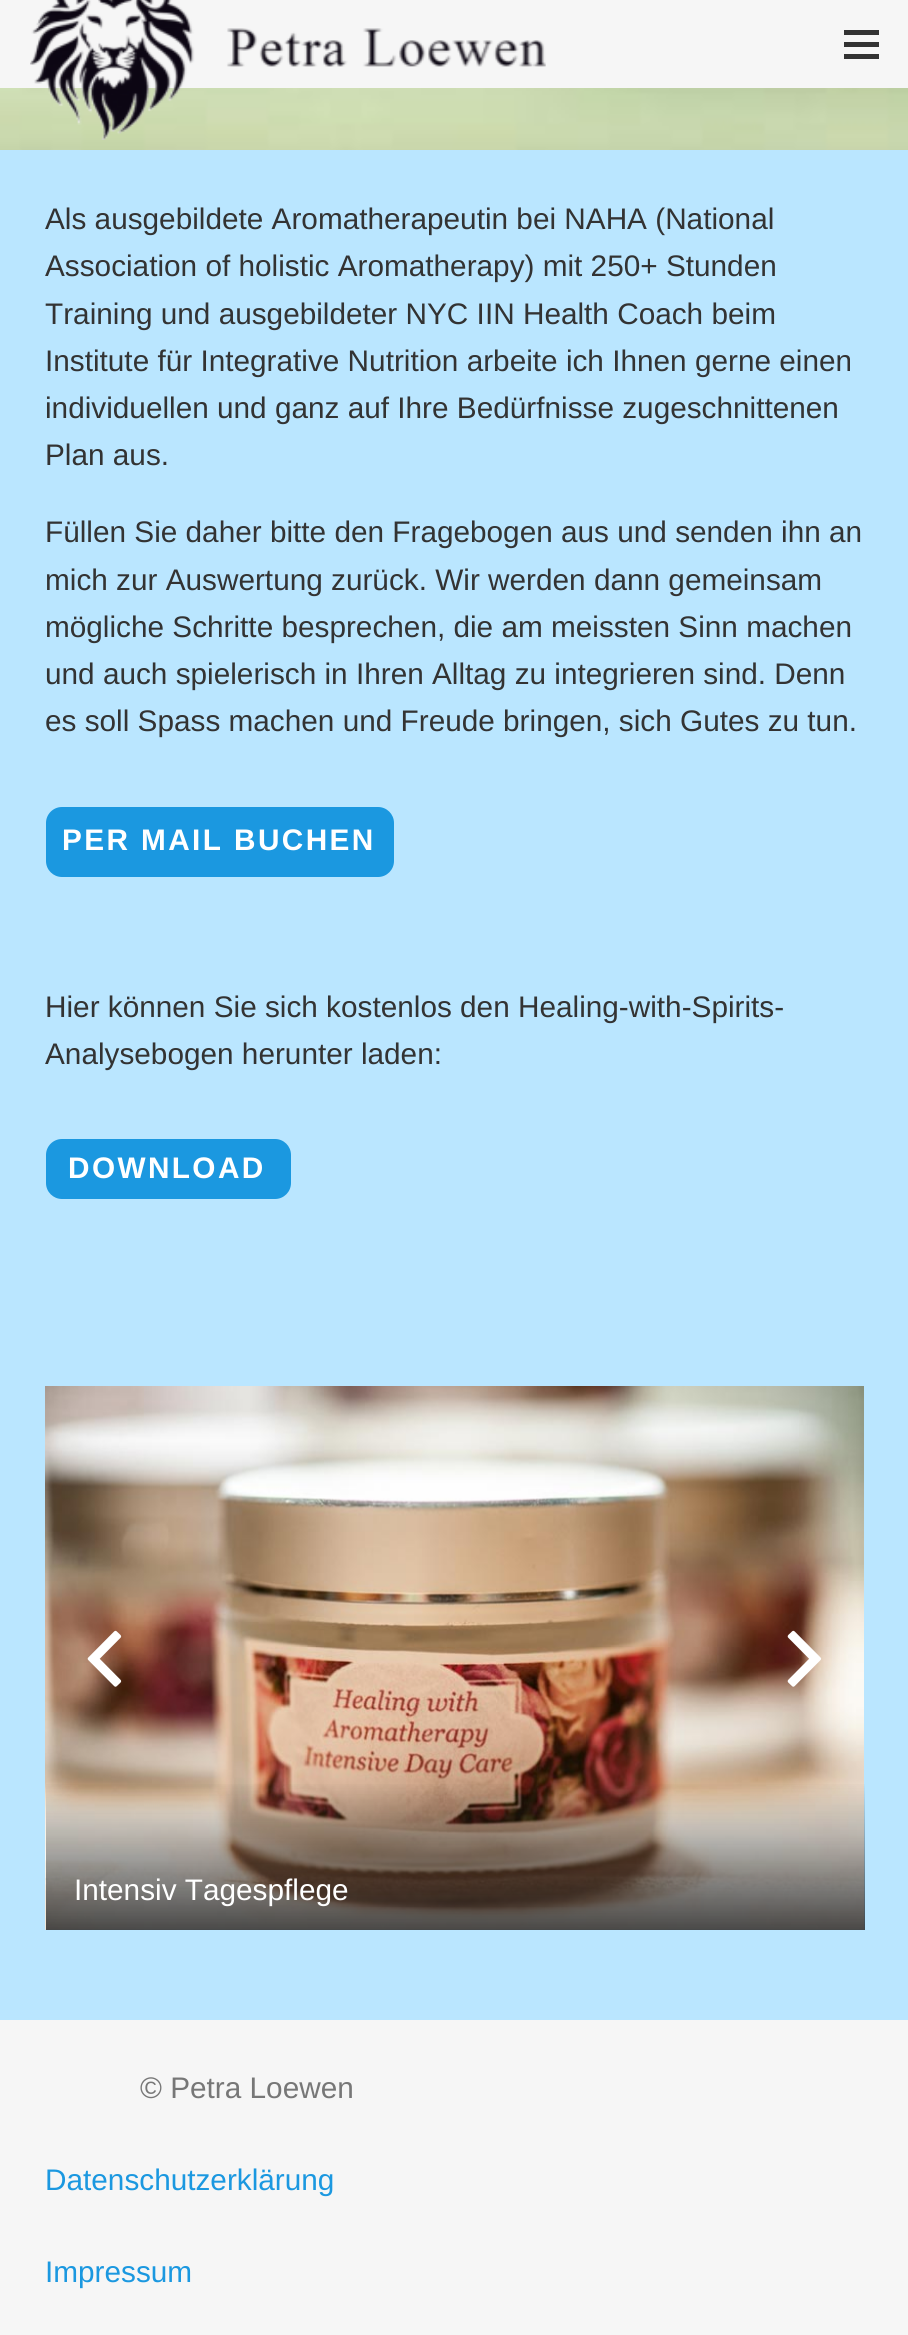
import math
import cairo

surface = cairo.ImageSurface(cairo.FORMAT_RGB24, 908, 2335)
ctx = cairo.Context(surface)
options = cairo.FontOptions()
options.set_hint_metrics(cairo.HINT_METRICS_OFF)
options.set_hint_style(cairo.HINT_STYLE_NONE)
ctx.set_font_options(options)
ctx.set_miter_limit(4)


def spaced_text(x, y, s, letter, word):
    ctx.move_to(x, y)
    for ch in s:
        ctx.show_text(ch)
        ctx.rel_move_to(letter + word * (ch == ' '), 0)


def round_rect(x, y, w, h, r):
    ctx.new_sub_path()
    for i, (u, v) in enumerate([(x + w - r, y + h - r), (x + r, y + h - r), (x + r, y + r), (x + w - r, y + r)]):
        ctx.arc(u, v, r, i * math.pi / 2, (i + 1) * math.pi / 2)
    ctx.close_path()


def picture(path, x, y, w, h):
    ctx.save()
    ctx.set_source_surface(cairo.ImageSurface.create_from_png(path), x, y)
    ctx.rectangle(x, y, w, h)
    ctx.fill()
    ctx.restore()


ctx.set_source_rgb(0.729, 0.902, 1)
ctx.paint()
ctx.set_source_rgb(0.961, 0.961, 0.961)
ctx.rectangle(0, 0, 908, 88)
ctx.fill()
picture("img2.png", 0, 88, 908, 62)
picture("img1.png", 30, 0, 516, 140)
ctx.set_source_rgb(0.2, 0.2, 0.2)
ctx.rectangle(844, 42, 35, 5)
ctx.fill()
ctx.rectangle(844, 30, 35, 5)
ctx.fill()
ctx.rectangle(844, 54, 35, 5)
ctx.fill()
ctx.select_font_face("Liberation Sans")
ctx.set_font_size(29.75)
ctx.move_to(45, 229)
ctx.show_text("Als ausgebildete Aromatherapeutin bei NAHA (National")
ctx.move_to(45, 276)
ctx.show_text("Association of holistic Aromatherapy) mit 250+ Stunden")
ctx.move_to(45, 324)
ctx.show_text("Training und ausgebildeter NYC IIN Health Coach beim")
ctx.move_to(45, 371)
ctx.show_text("Institute für Integrative Nutrition arbeite ich Ihnen gerne einen")
ctx.move_to(45, 418)
ctx.show_text("individuellen und ganz auf Ihre Bedürfnisse zugeschnittenen")
ctx.move_to(45, 465)
ctx.show_text("Plan aus.")
ctx.move_to(45, 542)
ctx.show_text("Füllen Sie daher bitte den Fragebogen aus und senden ihn an")
ctx.move_to(45, 590)
ctx.show_text("mich zur Auswertung zurück. Wir werden dann gemeinsam")
ctx.move_to(45, 637)
ctx.show_text("mögliche Schritte besprechen, die am meissten Sinn machen")
ctx.move_to(45, 684)
ctx.show_text("und auch spielerisch in Ihren Alltag zu integrieren sind. Denn")
ctx.move_to(45, 731)
ctx.show_text("es soll Spass machen und Freude bringen, sich Gutes zu tun.")
ctx.set_source_rgb(0.106, 0.596, 0.878)
round_rect(46, 807, 348, 70, 16)
ctx.fill()
ctx.select_font_face("Liberation Sans", cairo.FONT_SLANT_NORMAL, cairo.FONT_WEIGHT_BOLD)
ctx.set_source_rgb(1, 1, 1)
spaced_text(62, 850, "PER MAIL BUCHEN", 2.4, 0)
ctx.select_font_face("Liberation Sans")
ctx.set_source_rgb(0.2, 0.2, 0.2)
ctx.move_to(45, 1017)
ctx.show_text("Hier können Sie sich kostenlos den Healing-with-Spirits-")
ctx.move_to(45, 1064)
ctx.show_text("Analysebogen herunter laden:")
ctx.set_source_rgb(0.106, 0.596, 0.878)
round_rect(46, 1139, 245, 60, 16)
ctx.fill()
ctx.select_font_face("Liberation Sans", cairo.FONT_SLANT_NORMAL, cairo.FONT_WEIGHT_BOLD)
ctx.set_source_rgb(1, 1, 1)
spaced_text(68, 1178, "DOWNLOAD", 2.4, 0)
picture("img5.png", 45, 1386, 819, 544)
picture("img3.png", 87, 1630, 35, 57)
picture("img4.png", 787, 1630, 35, 57)
gradient = cairo.LinearGradient(455, 1780, 455, 1930)
gradient.add_color_stop_rgba(0, 0.118, 0.118, 0.118, 0)
gradient.add_color_stop_rgba(1, 0.118, 0.118, 0.118, 0.8)
ctx.set_source(gradient)
ctx.rectangle(46, 1784, 819, 146)
ctx.fill()
ctx.select_font_face("Liberation Sans")
ctx.set_source_rgb(1, 1, 1)
ctx.move_to(74, 1900)
ctx.show_text("Intensiv Tagespflege")
ctx.set_source_rgb(0.961, 0.961, 0.961)
ctx.rectangle(0, 2020, 908, 315)
ctx.fill()
ctx.set_source_rgb(0.467, 0.467, 0.467)
ctx.move_to(140, 2098)
ctx.show_text("© Petra Loewen")
ctx.set_source_rgb(0.106, 0.596, 0.878)
ctx.move_to(45, 2190)
ctx.show_text("Datenschutzerklärung")
ctx.move_to(45, 2282)
ctx.show_text("Impressum")
surface.write_to_png("page.png")
